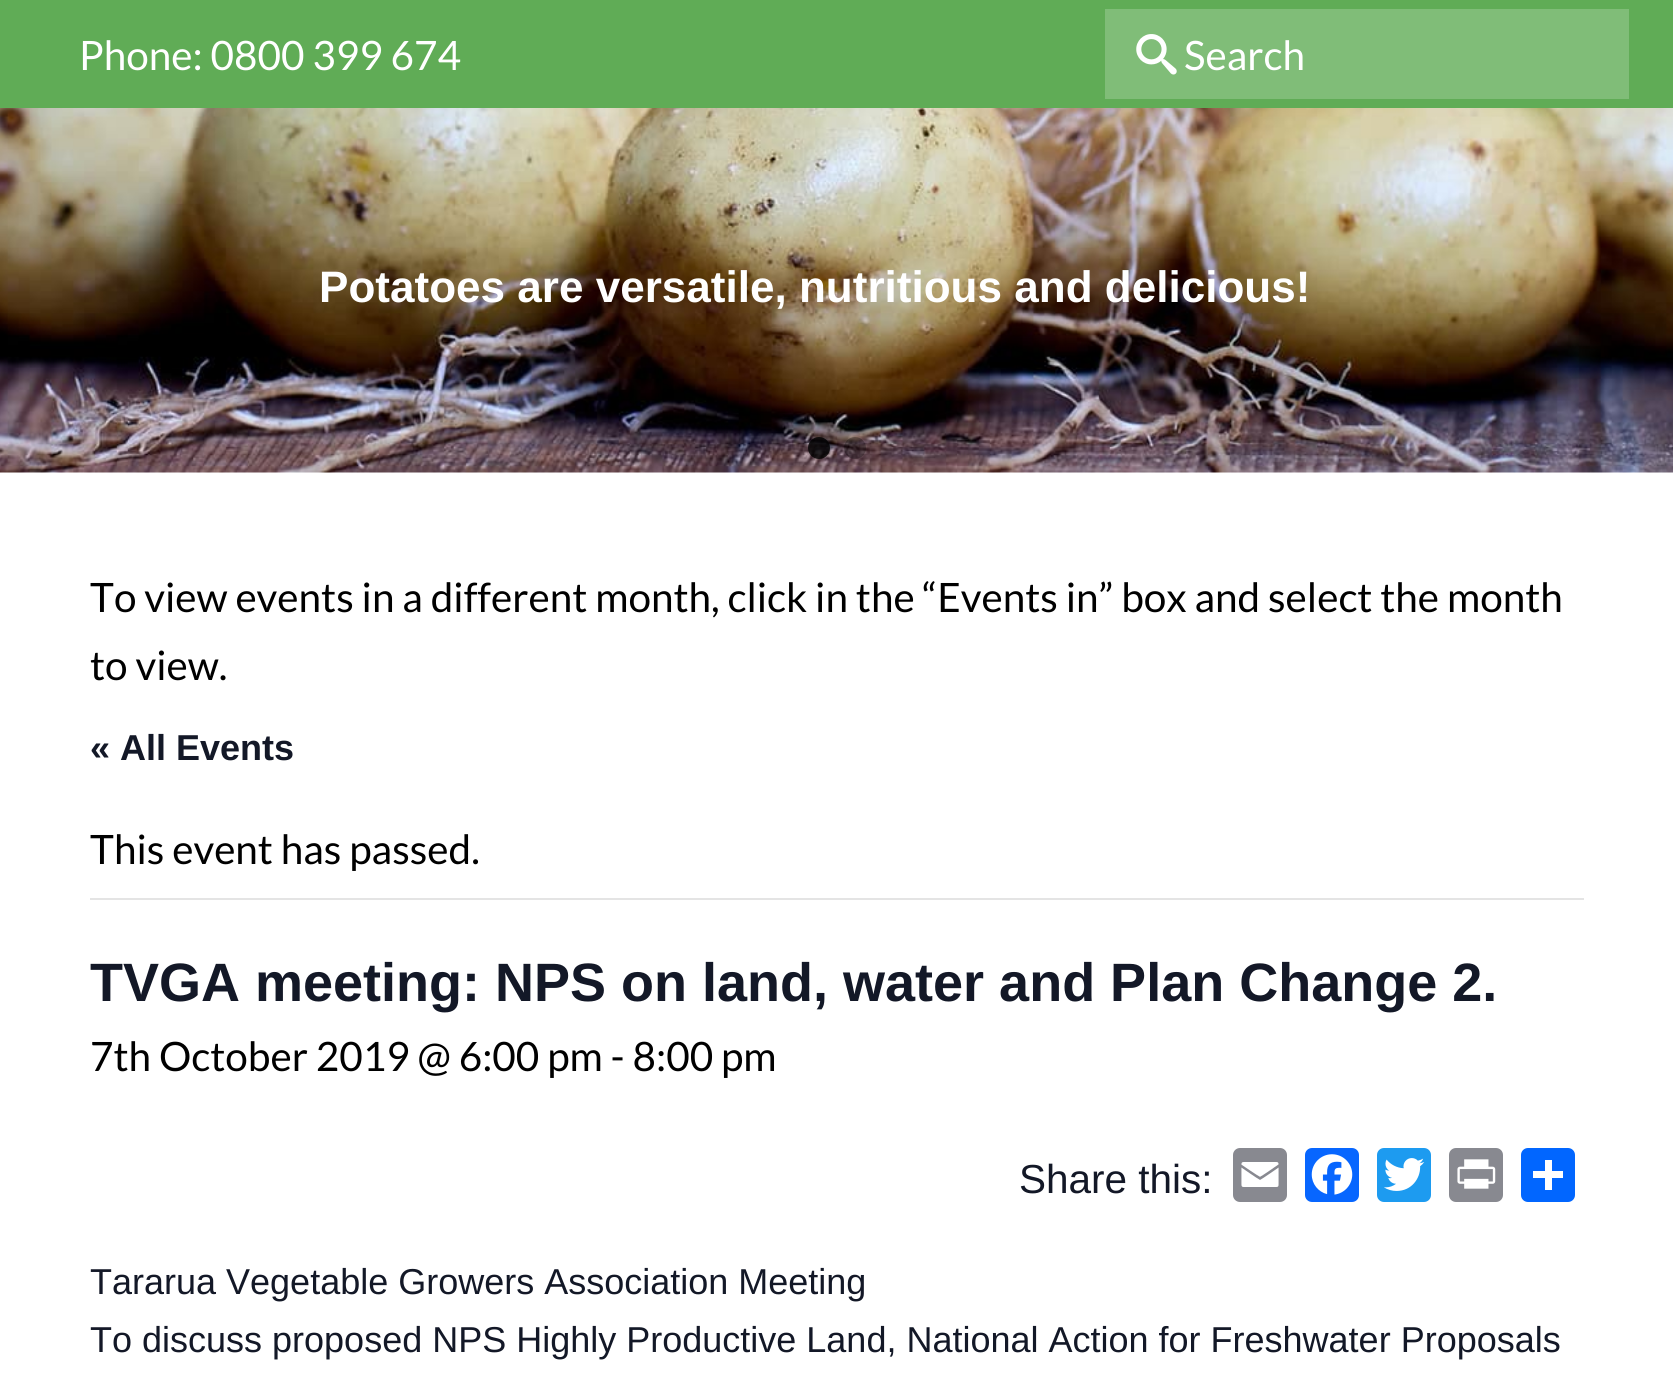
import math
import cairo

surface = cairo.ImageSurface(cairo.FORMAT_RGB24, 1673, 1400)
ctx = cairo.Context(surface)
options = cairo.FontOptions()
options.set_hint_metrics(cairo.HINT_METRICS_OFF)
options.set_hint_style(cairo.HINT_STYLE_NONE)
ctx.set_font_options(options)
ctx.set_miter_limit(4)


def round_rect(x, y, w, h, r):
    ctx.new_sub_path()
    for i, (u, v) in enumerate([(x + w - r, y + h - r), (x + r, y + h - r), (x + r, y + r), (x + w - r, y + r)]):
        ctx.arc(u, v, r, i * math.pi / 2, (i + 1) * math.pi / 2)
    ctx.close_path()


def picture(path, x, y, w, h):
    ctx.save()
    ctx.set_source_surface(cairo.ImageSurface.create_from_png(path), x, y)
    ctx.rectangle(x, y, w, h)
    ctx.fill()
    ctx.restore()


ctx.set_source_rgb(1, 1, 1)
ctx.paint()
ctx.set_source_rgb(0.376, 0.675, 0.337)
ctx.rectangle(0, 0, 1673, 108)
ctx.fill()
ctx.select_font_face("Lato")
ctx.set_font_size(40.5)
ctx.set_source_rgb(1, 1, 1)
ctx.move_to(79, 70)
ctx.show_text("Phone: 0800 399 674")
ctx.set_source_rgb(0.502, 0.741, 0.471)
ctx.rectangle(1105, 9, 524, 90)
ctx.fill()
picture("img1.png", 1136, 34, 41, 41)
ctx.set_source_rgb(1, 1, 1)
ctx.move_to(1184, 70)
ctx.show_text("Search")
picture("img2.png", 0, 108, 1673, 365)
ctx.select_font_face("Liberation Sans", cairo.FONT_SLANT_NORMAL, cairo.FONT_WEIGHT_BOLD)
ctx.set_font_size(44.05)
ctx.move_to(319, 302)
ctx.show_text("Potatoes are versatile, nutritious and delicious!")
ctx.set_source_rgba(0, 0, 0, 0.8)
ctx.new_path()
ctx.arc(819, 448, 11, 0, 2 * math.pi)
ctx.fill()
ctx.set_source_rgba(0, 0, 0, 0.3)
ctx.arc(855, 448, 11, 0, 2 * math.pi)
ctx.fill()
ctx.select_font_face("Lato")
ctx.set_font_size(40.5)
ctx.set_source_rgb(0, 0, 0)
ctx.move_to(90, 612)
ctx.show_text("To view events in a different month, click in the “Events in” box and select the month")
ctx.move_to(90, 680)
ctx.show_text("to view.")
ctx.select_font_face("Liberation Sans", cairo.FONT_SLANT_NORMAL, cairo.FONT_WEIGHT_BOLD)
ctx.set_font_size(36)
ctx.set_source_rgb(0.078, 0.094, 0.153)
ctx.move_to(90, 760)
ctx.show_text("« All Events")
ctx.set_source_rgb(0.894, 0.894, 0.894)
ctx.rectangle(90, 898, 1494, 2)
ctx.fill()
ctx.select_font_face("Lato")
ctx.set_font_size(40.5)
ctx.set_source_rgb(0, 0, 0)
ctx.move_to(90, 864)
ctx.show_text("This event has passed.")
ctx.select_font_face("Liberation Sans", cairo.FONT_SLANT_NORMAL, cairo.FONT_WEIGHT_BOLD)
ctx.set_font_size(54)
ctx.set_source_rgb(0.078, 0.094, 0.153)
ctx.move_to(90, 1001)
ctx.show_text("TVGA meeting: NPS on land, water and Plan Change 2.")
ctx.select_font_face("Lato")
ctx.set_font_size(40.5)
ctx.set_source_rgb(0, 0, 0)
ctx.move_to(90, 1071)
ctx.show_text("7th October 2019 @ 6:00 pm - 8:00 pm")
ctx.select_font_face("Liberation Sans")
ctx.set_source_rgb(0.078, 0.094, 0.153)
ctx.move_to(1019, 1193)
ctx.show_text("Share this:")
ctx.set_source_rgb(0.533, 0.537, 0.565)
round_rect(1233, 1148, 54, 54, 7)
ctx.fill()
picture("img3.png", 1241, 1162, 38, 25)
ctx.set_source_rgb(0.031, 0.4, 1)
round_rect(1305, 1148, 54, 54, 7)
ctx.fill()
picture("img4.png", 1311, 1154, 42, 41)
ctx.set_source_rgb(0.114, 0.608, 0.941)
round_rect(1377, 1148, 54, 54, 7)
ctx.fill()
picture("img5.png", 1384, 1158, 41, 33)
ctx.set_source_rgb(0.533, 0.537, 0.565)
round_rect(1449, 1148, 54, 54, 7)
ctx.fill()
picture("img6.png", 1457, 1159, 39, 30)
ctx.set_source_rgb(0.004, 0.4, 1)
round_rect(1521, 1148, 54, 54, 7)
ctx.fill()
ctx.set_source_rgb(1, 1, 1)
ctx.rectangle(1545, 1160, 7, 30)
ctx.fill()
ctx.rectangle(1533, 1171, 30, 7)
ctx.fill()
ctx.set_font_size(36)
ctx.set_source_rgb(0.078, 0.094, 0.153)
ctx.move_to(90, 1294)
ctx.show_text("Tararua Vegetable Growers Association Meeting")
ctx.move_to(90, 1352)
ctx.show_text("To discuss proposed NPS Highly Productive Land, National Action for Freshwater Proposals")
surface.write_to_png("page.png")
